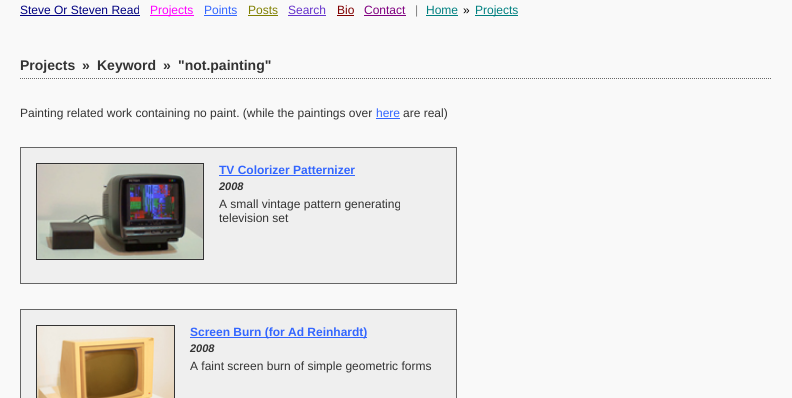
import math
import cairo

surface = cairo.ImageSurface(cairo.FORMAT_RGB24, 792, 398)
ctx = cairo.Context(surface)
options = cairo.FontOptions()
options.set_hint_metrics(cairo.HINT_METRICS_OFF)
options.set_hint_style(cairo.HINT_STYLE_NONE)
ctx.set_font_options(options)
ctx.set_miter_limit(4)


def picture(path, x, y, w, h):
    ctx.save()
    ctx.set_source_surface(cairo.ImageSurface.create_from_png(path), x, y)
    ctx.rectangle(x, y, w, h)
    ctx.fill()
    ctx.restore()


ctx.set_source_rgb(0.976, 0.976, 0.976)
ctx.paint()
ctx.select_font_face("Liberation Sans")
ctx.set_font_size(12)
ctx.set_source_rgb(0, 0, 0.502)
ctx.move_to(20, 14)
ctx.show_text("Steve Or Steven Read")
ctx.rectangle(20, 15, 120, 1)
ctx.fill()
ctx.set_source_rgb(1, 0, 1)
ctx.rectangle(150, 15, 44, 1)
ctx.fill()
ctx.move_to(150, 14)
ctx.show_text("Projects")
ctx.set_source_rgb(0.2, 0.4, 1)
ctx.move_to(204, 14)
ctx.show_text("Points")
ctx.rectangle(204, 15, 33, 1)
ctx.fill()
ctx.set_source_rgb(0.502, 0.502, 0)
ctx.move_to(248, 14)
ctx.show_text("Posts")
ctx.rectangle(248, 15, 30, 1)
ctx.fill()
ctx.set_source_rgb(0.4, 0.2, 0.8)
ctx.move_to(288, 14)
ctx.show_text("Search")
ctx.rectangle(288, 15, 38, 1)
ctx.fill()
ctx.set_source_rgb(0.502, 0, 0)
ctx.move_to(337, 14)
ctx.show_text("Bio")
ctx.rectangle(337, 15, 17, 1)
ctx.fill()
ctx.set_source_rgb(0.502, 0, 0.502)
ctx.move_to(364, 14)
ctx.show_text("Contact")
ctx.rectangle(364, 15, 42, 1)
ctx.fill()
ctx.set_source_rgb(0.502, 0.502, 0.502)
ctx.move_to(415, 14)
ctx.show_text("|")
ctx.set_source_rgb(0, 0.502, 0.502)
ctx.move_to(426, 14)
ctx.show_text("Home")
ctx.rectangle(426, 15, 32, 1)
ctx.fill()
ctx.set_source_rgb(0, 0, 0)
ctx.move_to(463, 14)
ctx.show_text("»")
ctx.set_source_rgb(0, 0.502, 0.502)
ctx.rectangle(475, 15, 43, 1)
ctx.fill()
ctx.move_to(475, 14)
ctx.show_text("Projects")
ctx.new_path()
ctx.move_to(20, 78.5)
ctx.line_to(772, 78.5)
ctx.set_source_rgb(0.4, 0.4, 0.4)
ctx.set_line_width(1)
ctx.set_dash([1, 1])
ctx.stroke()
ctx.select_font_face("Liberation Sans", cairo.FONT_SLANT_NORMAL, cairo.FONT_WEIGHT_BOLD)
ctx.set_font_size(14)
ctx.set_source_rgb(0.2, 0.2, 0.2)
ctx.move_to(20, 70)
ctx.show_text("Projects")
ctx.move_to(82, 70)
ctx.show_text("»")
ctx.move_to(97, 70)
ctx.show_text("Keyword")
ctx.move_to(163, 70)
ctx.show_text("»")
ctx.move_to(178, 70)
ctx.show_text("\"not.painting\"")
ctx.select_font_face("Liberation Sans")
ctx.set_font_size(12)
ctx.move_to(20, 117)
ctx.show_text("Painting related work containing no paint. (while the paintings over")
ctx.set_source_rgb(0.2, 0.4, 1)
ctx.move_to(376, 117)
ctx.show_text("here")
ctx.rectangle(376, 118, 24, 1)
ctx.fill()
ctx.set_source_rgb(0.2, 0.2, 0.2)
ctx.move_to(403, 117)
ctx.show_text("are real)")
ctx.set_source_rgb(0.937, 0.937, 0.937)
ctx.rectangle(20.5, 147.5, 436, 136)
ctx.fill_preserve()
ctx.set_source_rgb(0.4, 0.4, 0.4)
ctx.set_dash([])
ctx.stroke()
ctx.rectangle(36.5, 163.5, 167, 96)
ctx.set_source_rgb(0.2, 0.2, 0.2)
ctx.stroke()
picture("img1.png", 37, 164, 166, 95)
ctx.select_font_face("Liberation Sans", cairo.FONT_SLANT_NORMAL, cairo.FONT_WEIGHT_BOLD)
ctx.set_source_rgb(0.2, 0.4, 1)
ctx.move_to(219, 174)
ctx.show_text("TV Colorizer Patternizer")
ctx.rectangle(219, 175, 136, 1)
ctx.fill()
ctx.select_font_face("Liberation Sans", cairo.FONT_SLANT_ITALIC, cairo.FONT_WEIGHT_BOLD)
ctx.set_font_size(11)
ctx.set_source_rgb(0.2, 0.2, 0.2)
ctx.move_to(219, 190)
ctx.show_text("2008")
ctx.select_font_face("Liberation Sans")
ctx.set_font_size(12)
ctx.move_to(219, 208)
ctx.show_text("A small vintage pattern generating")
ctx.move_to(219, 222)
ctx.show_text("television set")
ctx.set_source_rgb(0.937, 0.937, 0.937)
ctx.rectangle(20.5, 309.5, 436, 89)
ctx.fill_preserve()
ctx.set_source_rgb(0.4, 0.4, 0.4)
ctx.stroke()
ctx.rectangle(36.5, 325.5, 138, 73)
ctx.set_source_rgb(0.2, 0.2, 0.2)
ctx.stroke()
picture("img2.png", 37, 326, 137, 72)
ctx.set_source_rgb(0.2, 0.4, 1)
ctx.rectangle(190, 337, 177, 1)
ctx.fill()
ctx.select_font_face("Liberation Sans", cairo.FONT_SLANT_NORMAL, cairo.FONT_WEIGHT_BOLD)
ctx.move_to(190, 336)
ctx.show_text("Screen Burn (for Ad Reinhardt)")
ctx.select_font_face("Liberation Sans", cairo.FONT_SLANT_ITALIC, cairo.FONT_WEIGHT_BOLD)
ctx.set_font_size(11)
ctx.set_source_rgb(0.2, 0.2, 0.2)
ctx.move_to(190, 352)
ctx.show_text("2008")
ctx.select_font_face("Liberation Sans")
ctx.set_font_size(12)
ctx.move_to(190, 370)
ctx.show_text("A faint screen burn of simple geometric forms")
surface.write_to_png("page.png")
